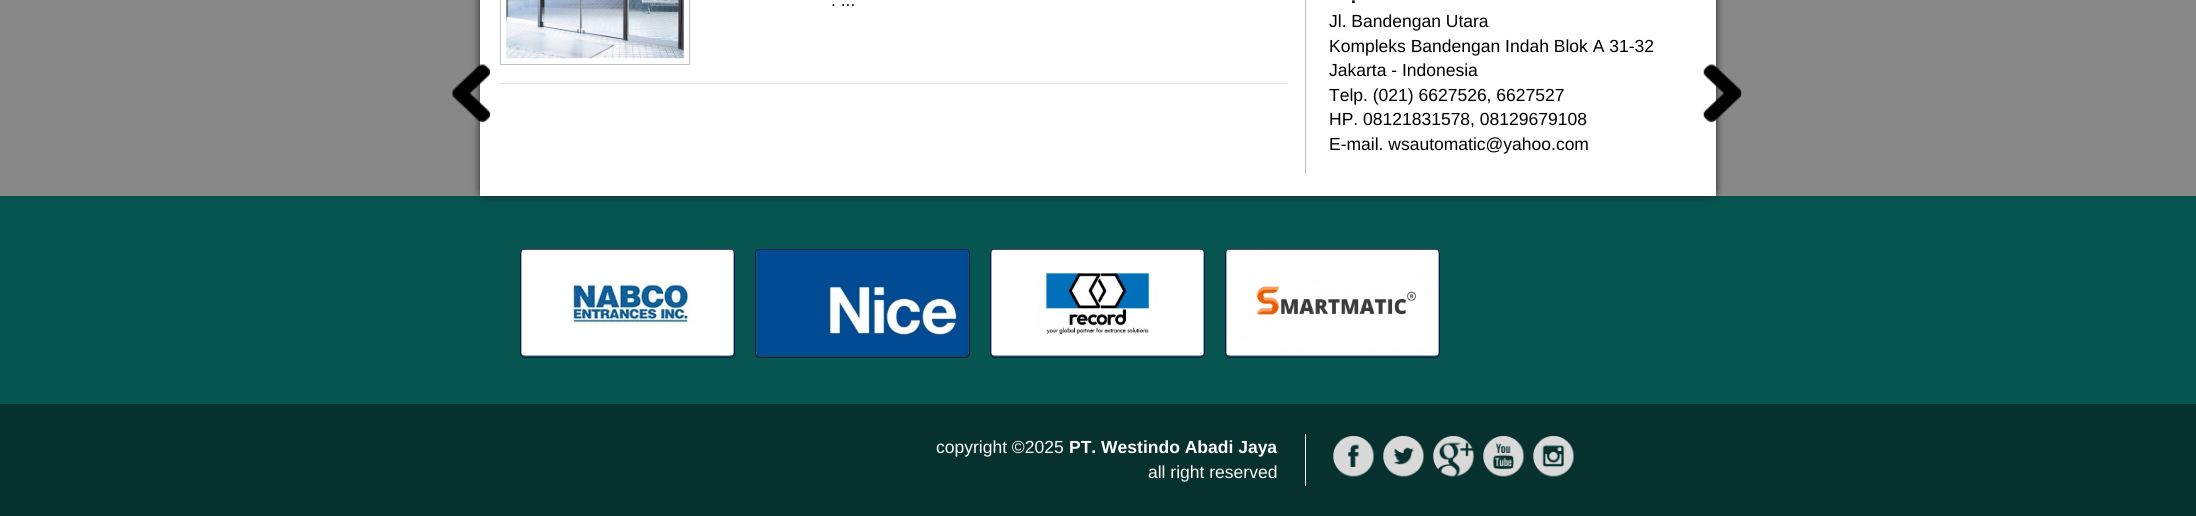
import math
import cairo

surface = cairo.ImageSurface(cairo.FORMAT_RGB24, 2196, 516)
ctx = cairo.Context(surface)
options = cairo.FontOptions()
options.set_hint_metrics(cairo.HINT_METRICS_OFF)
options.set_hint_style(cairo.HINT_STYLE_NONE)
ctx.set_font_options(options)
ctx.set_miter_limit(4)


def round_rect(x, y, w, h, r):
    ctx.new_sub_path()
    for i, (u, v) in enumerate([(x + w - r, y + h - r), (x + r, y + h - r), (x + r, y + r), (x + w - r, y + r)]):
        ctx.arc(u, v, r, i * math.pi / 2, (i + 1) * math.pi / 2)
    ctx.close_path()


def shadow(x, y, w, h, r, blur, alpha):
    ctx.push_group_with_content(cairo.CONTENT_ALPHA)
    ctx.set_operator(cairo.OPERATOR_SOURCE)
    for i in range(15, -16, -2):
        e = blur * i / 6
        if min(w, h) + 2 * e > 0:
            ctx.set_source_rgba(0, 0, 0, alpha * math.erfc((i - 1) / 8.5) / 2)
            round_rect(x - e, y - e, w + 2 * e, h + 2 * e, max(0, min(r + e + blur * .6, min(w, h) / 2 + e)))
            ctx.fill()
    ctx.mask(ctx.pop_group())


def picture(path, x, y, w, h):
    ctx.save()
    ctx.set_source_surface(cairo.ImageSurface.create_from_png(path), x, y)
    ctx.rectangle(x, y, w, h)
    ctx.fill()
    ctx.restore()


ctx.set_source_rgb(0.533, 0.533, 0.533)
ctx.paint()
ctx.set_source_rgb(0.027, 0.333, 0.314)
ctx.rectangle(0, 196, 2196, 208)
ctx.fill()
ctx.set_source_rgb(0.133, 0.133, 0.133)
shadow(480, -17, 1236, 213, 5, 4, 1)
ctx.set_source_rgb(1, 1, 1)
ctx.rectangle(480, 0, 1236, 196)
ctx.fill()
picture("img1.png", 452, 64, 38, 59)
ctx.set_source_rgb(0.878, 0.878, 0.878)
ctx.rectangle(500, 83, 788, 1)
ctx.fill()
ctx.rectangle(500.5, -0.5, 189, 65)
ctx.set_source_rgb(0.753, 0.753, 0.753)
ctx.set_line_width(1)
ctx.stroke()
picture("img2.png", 506, 0, 178, 59)
ctx.select_font_face("Liberation Sans")
ctx.set_font_size(17.5)
ctx.set_source_rgb(0.067, 0.067, 0.067)
ctx.move_to(831, 6)
ctx.show_text(". ...")
ctx.set_source_rgb(0.753, 0.753, 0.753)
ctx.rectangle(1305, 0, 1, 174)
ctx.fill()
ctx.select_font_face("Liberation Sans", cairo.FONT_SLANT_NORMAL, cairo.FONT_WEIGHT_BOLD)
ctx.set_source_rgb(0, 0, 0)
ctx.move_to(1351, 3)
ctx.show_text(".")
ctx.select_font_face("Liberation Sans")
ctx.move_to(1329, 27)
ctx.show_text("Jl. Bandengan Utara")
ctx.move_to(1329, 52)
ctx.show_text("Kompleks Bandengan Indah Blok A 31-32")
ctx.move_to(1329, 76)
ctx.show_text("Jakarta - Indonesia")
ctx.move_to(1329, 101)
ctx.show_text("Telp. (021) 6627526, 6627527")
ctx.move_to(1329, 125)
ctx.show_text("HP. 08121831578, 08129679108")
ctx.move_to(1329, 150)
ctx.show_text("E-mail. wsautomatic@yahoo.com")
picture("img3.png", 1703, 64, 39, 59)
round_rect(520.5, 249.5, 214, 108, 4.5)
ctx.set_source_rgb(0.125, 0.071, 0.29)
ctx.stroke()
picture("img4.png", 521, 249, 213, 107)
round_rect(755.5, 249.5, 214, 108, 4.5)
ctx.stroke()
picture("img5.png", 756, 249, 213, 107)
round_rect(990.5, 249.5, 214, 108, 4.5)
ctx.stroke()
picture("img6.png", 991, 249, 213, 107)
round_rect(1225.5, 249.5, 214, 108, 4.5)
ctx.stroke()
picture("img7.png", 1226, 249, 213, 107)
ctx.set_source_rgb(0.027, 0.192, 0.18)
ctx.rectangle(0, 404, 2196, 112)
ctx.fill()
ctx.set_source_rgb(1, 1, 1)
ctx.move_to(936, 453)
ctx.show_text("copyright ©2025")
ctx.select_font_face("Liberation Sans", cairo.FONT_SLANT_NORMAL, cairo.FONT_WEIGHT_BOLD)
ctx.move_to(1069, 453)
ctx.show_text("PT. Westindo Abadi Jaya")
ctx.select_font_face("Liberation Sans")
ctx.move_to(1148, 478)
ctx.show_text("all right reserved")
ctx.rectangle(1305, 434, 1, 52)
ctx.fill()
picture("img8.png", 1333, 435, 42, 42)
picture("img9.png", 1383, 435, 42, 42)
picture("img10.png", 1433, 435, 42, 42)
picture("img11.png", 1483, 435, 42, 42)
picture("img12.png", 1533, 435, 42, 42)
surface.write_to_png("page.png")
